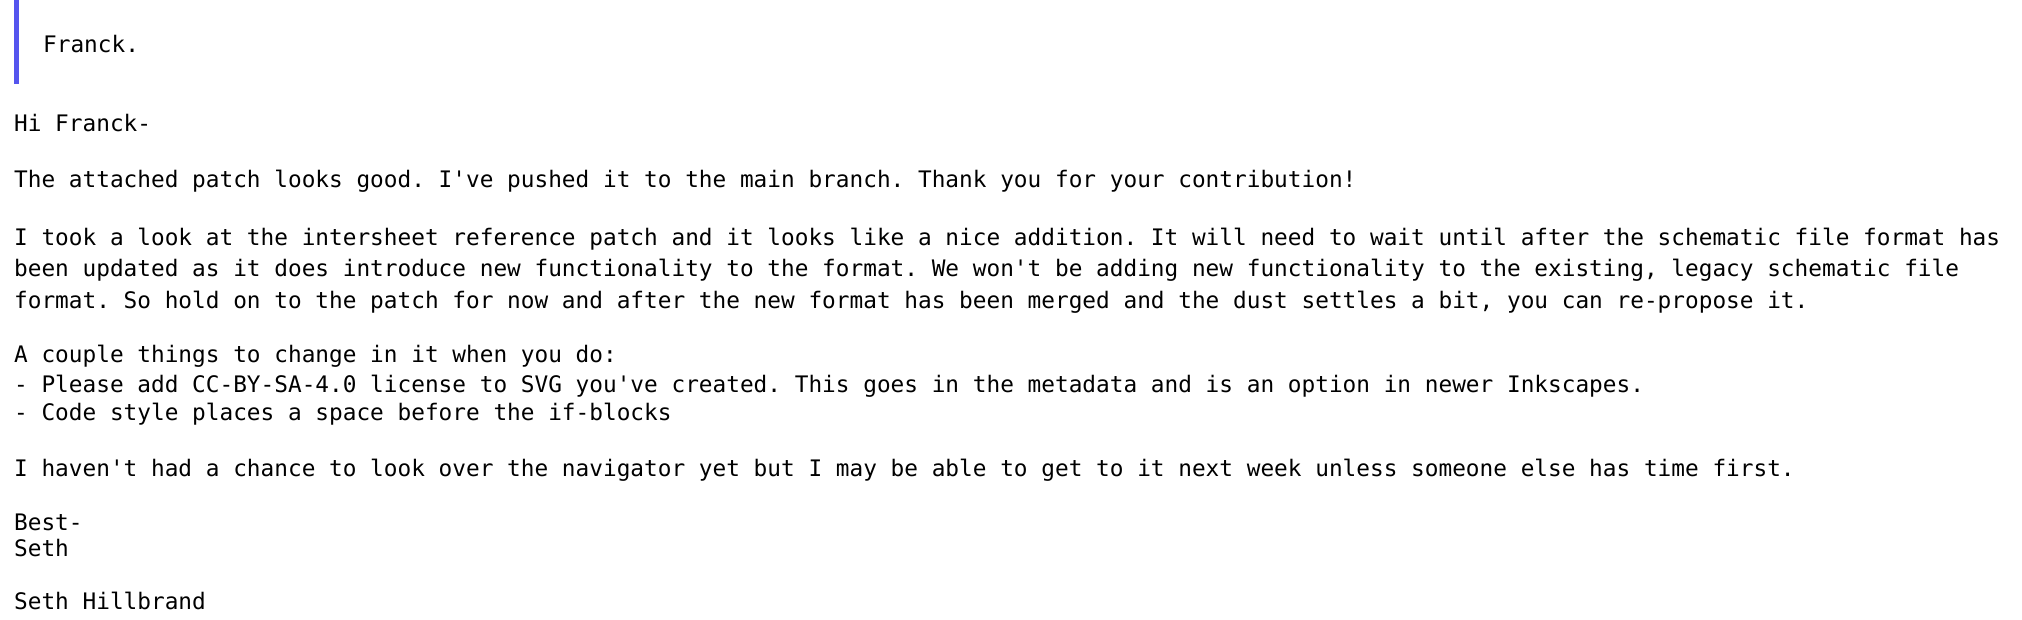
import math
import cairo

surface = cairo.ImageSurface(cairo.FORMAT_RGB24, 2022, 620)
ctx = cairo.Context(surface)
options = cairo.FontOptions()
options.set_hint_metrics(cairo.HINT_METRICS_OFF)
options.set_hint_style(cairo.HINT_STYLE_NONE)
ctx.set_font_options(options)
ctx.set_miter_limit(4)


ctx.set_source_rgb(1, 1, 1)
ctx.paint()
ctx.set_source_rgb(0.333, 0.333, 0.933)
ctx.rectangle(14, 0, 5, 84)
ctx.fill()
ctx.select_font_face("DejaVu Sans Mono")
ctx.set_font_size(22.75)
ctx.set_source_rgb(0, 0, 0)
ctx.move_to(43, 52)
ctx.show_text("Franck.")
ctx.move_to(14, 131)
ctx.show_text("Hi Franck-")
ctx.move_to(14, 187)
ctx.show_text("The attached patch looks good. I've pushed it to the main branch. Thank you for your contribution!")
ctx.move_to(14, 245)
ctx.show_text("I took a look at the intersheet reference patch and it looks like a nice addition. It will need to wait until after the schematic file format has")
ctx.move_to(14, 276)
ctx.show_text("been updated as it does introduce new functionality to the format. We won't be adding new functionality to the existing, legacy schematic file")
ctx.move_to(14, 308)
ctx.show_text("format. So hold on to the patch for now and after the new format has been merged and the dust settles a bit, you can re-propose it.")
ctx.move_to(14, 362)
ctx.show_text("A couple things to change in it when you do:")
ctx.move_to(14, 392)
ctx.show_text("- Please add CC-BY-SA-4.0 license to SVG you've created. This goes in the metadata and is an option in newer Inkscapes.")
ctx.move_to(14, 420)
ctx.show_text("- Code style places a space before the if-blocks")
ctx.move_to(14, 476)
ctx.show_text("I haven't had a chance to look over the navigator yet but I may be able to get to it next week unless someone else has time first.")
ctx.move_to(14, 530)
ctx.show_text("Best-")
ctx.move_to(14, 556)
ctx.show_text("Seth")
ctx.move_to(14, 609)
ctx.show_text("Seth Hillbrand")
surface.write_to_png("page.png")
